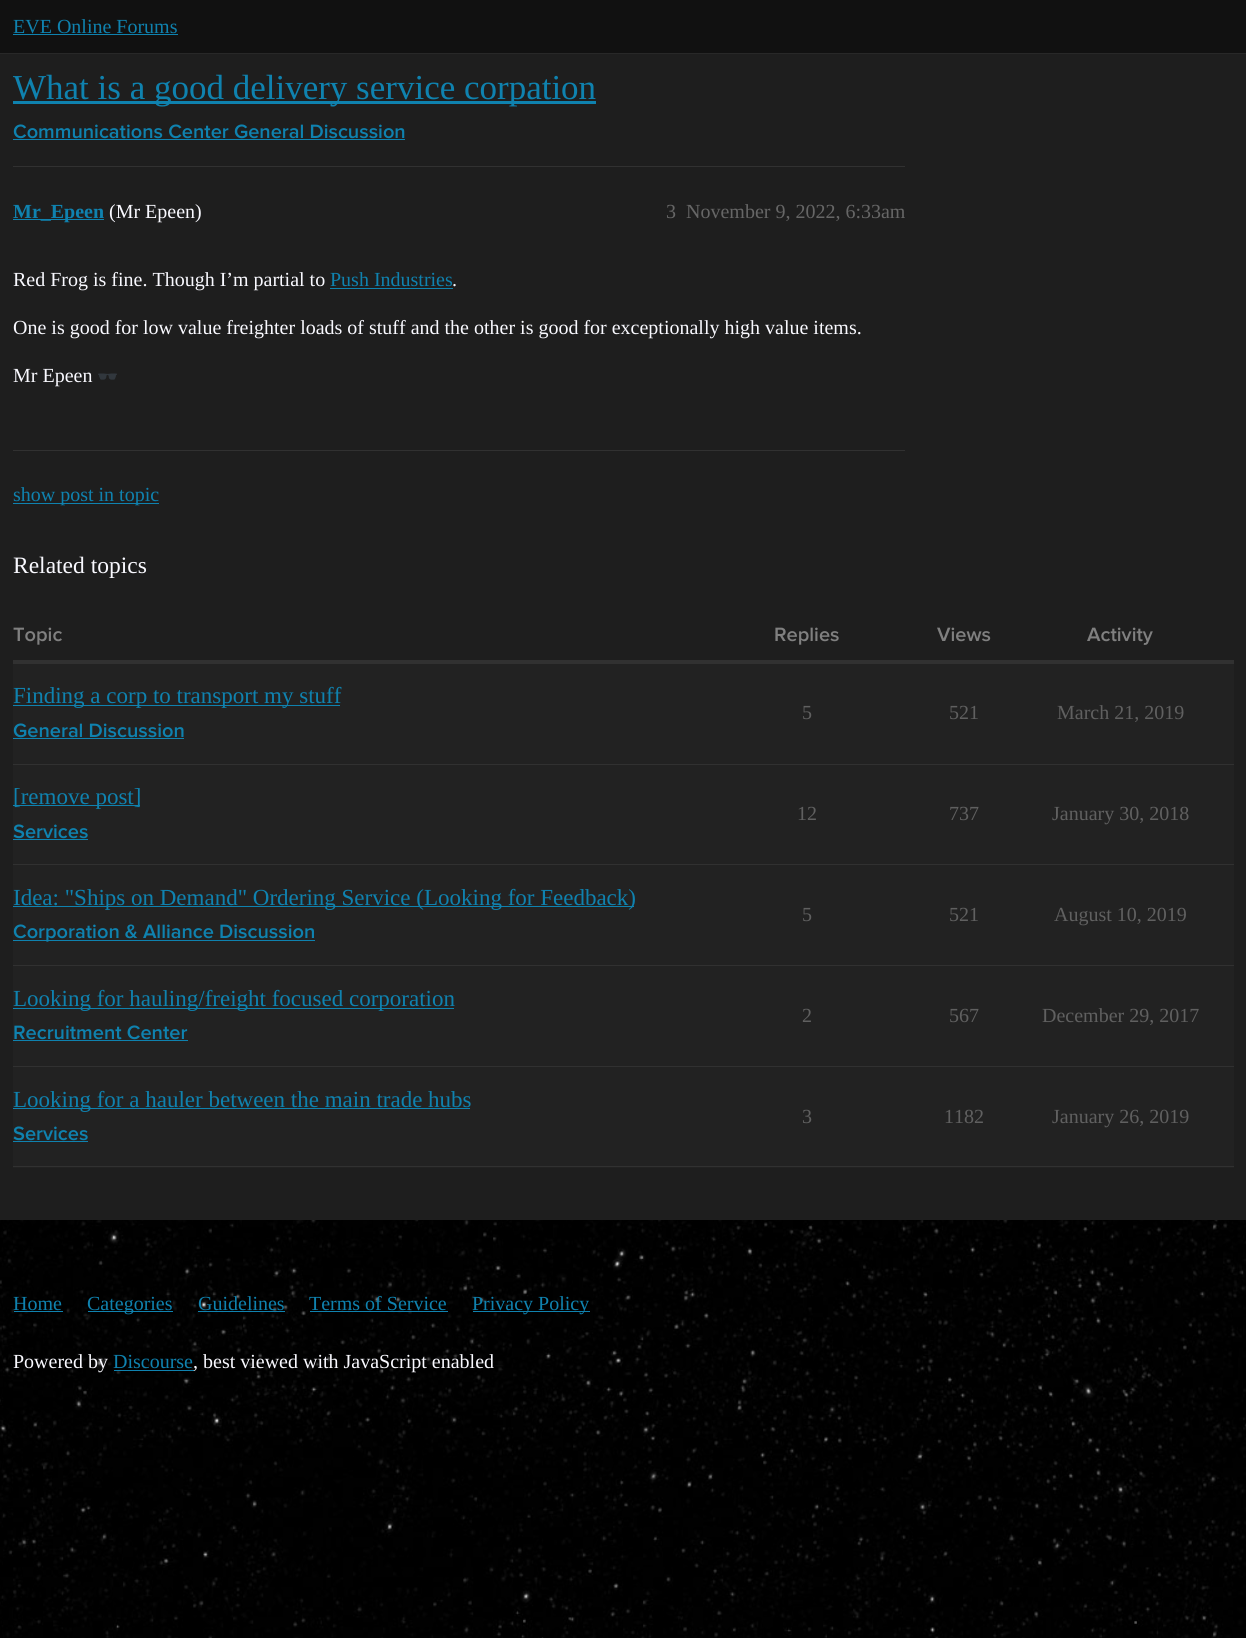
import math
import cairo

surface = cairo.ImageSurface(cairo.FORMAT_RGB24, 1246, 1638)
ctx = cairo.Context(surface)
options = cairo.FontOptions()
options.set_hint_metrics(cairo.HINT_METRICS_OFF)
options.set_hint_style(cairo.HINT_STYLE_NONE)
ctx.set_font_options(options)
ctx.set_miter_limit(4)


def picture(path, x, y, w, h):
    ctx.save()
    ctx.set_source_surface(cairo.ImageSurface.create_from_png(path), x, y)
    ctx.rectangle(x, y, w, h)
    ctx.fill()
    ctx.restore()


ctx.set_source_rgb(1, 1, 1)
ctx.paint()
picture("img1.png", 0, 1220, 1246, 418)
ctx.set_source_rgb(0.067, 0.067, 0.067)
ctx.rectangle(0, 0, 1246, 53)
ctx.fill()
ctx.set_source_rgb(0.157, 0.157, 0.157)
ctx.rectangle(0, 53, 1246, 1)
ctx.fill()
ctx.select_font_face("Liberation Serif")
ctx.set_font_size(20)
ctx.set_source_rgb(0.059, 0.51, 0.686)
ctx.move_to(13, 33)
ctx.show_text("EVE Online Forums")
ctx.rectangle(13, 34, 165, 1)
ctx.fill()
ctx.set_source_rgb(0.118, 0.118, 0.118)
ctx.rectangle(0, 54, 1246, 1166)
ctx.fill()
ctx.set_source_rgb(0.059, 0.51, 0.686)
ctx.rectangle(13, 101, 583, 3)
ctx.fill()
ctx.set_font_size(35)
ctx.move_to(13, 99)
ctx.show_text("What is a good delivery service corpation")
ctx.select_font_face("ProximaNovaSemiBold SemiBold")
ctx.set_font_size(20)
ctx.move_to(13, 138)
ctx.show_text("Communications Center General Discussion")
ctx.rectangle(13, 139, 392, 1)
ctx.fill()
ctx.set_source_rgb(0.192, 0.192, 0.192)
ctx.rectangle(13, 166, 892, 1)
ctx.fill()
ctx.set_source_rgb(0.059, 0.51, 0.686)
ctx.rectangle(13, 219, 91, 1)
ctx.fill()
ctx.select_font_face("Liberation Serif", cairo.FONT_SLANT_NORMAL, cairo.FONT_WEIGHT_BOLD)
ctx.move_to(13, 218)
ctx.show_text("Mr_Epeen")
ctx.select_font_face("Liberation Serif")
ctx.set_source_rgb(0.973, 0.973, 1)
ctx.move_to(109, 218)
ctx.show_text("(Mr Epeen)")
ctx.set_source_rgb(0.4, 0.4, 0.4)
ctx.move_to(666, 218)
ctx.show_text("3")
ctx.move_to(686, 218)
ctx.show_text("November 9, 2022, 6:33am")
ctx.set_source_rgb(0.973, 0.973, 1)
ctx.move_to(13, 286)
ctx.show_text("Red Frog is fine. Though I’m partial to")
ctx.set_source_rgb(0.059, 0.51, 0.686)
ctx.move_to(330, 286)
ctx.show_text("Push Industries")
ctx.rectangle(330, 288, 123, 1)
ctx.fill()
ctx.set_source_rgb(0.973, 0.973, 1)
ctx.move_to(452, 286)
ctx.show_text(".")
ctx.move_to(13, 334)
ctx.show_text("One is good for low value freighter loads of stuff and the other is good for exceptionally high value items.")
ctx.move_to(13, 382)
ctx.show_text("Mr Epeen")
picture("img2.png", 98, 373, 19, 7)
ctx.set_source_rgb(0.192, 0.192, 0.192)
ctx.rectangle(13, 450, 892, 1)
ctx.fill()
ctx.set_source_rgb(0.059, 0.51, 0.686)
ctx.rectangle(13, 503, 146, 1)
ctx.fill()
ctx.move_to(13, 501)
ctx.show_text("show post in topic")
ctx.set_font_size(23.5)
ctx.set_source_rgb(0.973, 0.973, 1)
ctx.move_to(13, 573)
ctx.show_text("Related topics")
ctx.select_font_face("ProximaNovaSemiBold SemiBold")
ctx.set_font_size(20)
ctx.set_source_rgb(0.502, 0.502, 0.502)
ctx.move_to(13, 641)
ctx.show_text("Topic")
ctx.move_to(774, 641)
ctx.show_text("Replies")
ctx.move_to(937, 641)
ctx.show_text("Views")
ctx.move_to(1087, 641)
ctx.show_text("Activity")
ctx.set_source_rgb(0.192, 0.192, 0.192)
ctx.rectangle(13, 660, 1221, 4)
ctx.fill()
ctx.set_source_rgb(0.133, 0.133, 0.133)
ctx.rectangle(13, 664, 1221, 100)
ctx.fill()
ctx.set_source_rgb(0.192, 0.192, 0.192)
ctx.rectangle(13, 764, 1221, 1)
ctx.fill()
ctx.set_source_rgb(0.059, 0.51, 0.686)
ctx.rectangle(13, 705, 327, 1)
ctx.fill()
ctx.select_font_face("Liberation Serif")
ctx.set_font_size(23)
ctx.move_to(13, 703)
ctx.show_text("Finding a corp to transport my stuff")
ctx.select_font_face("ProximaNovaSemiBold SemiBold")
ctx.set_font_size(20)
ctx.move_to(13, 737)
ctx.show_text("General Discussion")
ctx.rectangle(13, 738, 171, 1)
ctx.fill()
ctx.select_font_face("Liberation Serif")
ctx.set_source_rgb(0.376, 0.376, 0.376)
ctx.move_to(802, 719)
ctx.show_text("5")
ctx.move_to(949, 719)
ctx.show_text("521")
ctx.move_to(1057, 719)
ctx.show_text("March 21, 2019")
ctx.set_source_rgb(0.133, 0.133, 0.133)
ctx.rectangle(13, 765, 1221, 99)
ctx.fill()
ctx.set_source_rgb(0.192, 0.192, 0.192)
ctx.rectangle(13, 864, 1221, 1)
ctx.fill()
ctx.set_source_rgb(0.059, 0.51, 0.686)
ctx.rectangle(13, 805, 127, 1)
ctx.fill()
ctx.set_font_size(23)
ctx.move_to(13, 804)
ctx.show_text("[remove post]")
ctx.select_font_face("ProximaNovaSemiBold SemiBold")
ctx.set_font_size(20)
ctx.move_to(13, 838)
ctx.show_text("Services")
ctx.rectangle(13, 839, 75, 1)
ctx.fill()
ctx.select_font_face("Liberation Serif")
ctx.set_source_rgb(0.376, 0.376, 0.376)
ctx.move_to(797, 820)
ctx.show_text("12")
ctx.move_to(949, 820)
ctx.show_text("737")
ctx.move_to(1052, 820)
ctx.show_text("January 30, 2018")
ctx.set_source_rgb(0.133, 0.133, 0.133)
ctx.rectangle(13, 865, 1221, 100)
ctx.fill()
ctx.set_source_rgb(0.192, 0.192, 0.192)
ctx.rectangle(13, 965, 1221, 1)
ctx.fill()
ctx.set_source_rgb(0.059, 0.51, 0.686)
ctx.rectangle(13, 906, 621, 1)
ctx.fill()
ctx.set_font_size(23)
ctx.move_to(13, 905)
ctx.show_text("Idea: \"Ships on Demand\" Ordering Service (Looking for Feedback)")
ctx.rectangle(13, 940, 302, 1)
ctx.fill()
ctx.select_font_face("ProximaNovaSemiBold SemiBold")
ctx.set_font_size(20)
ctx.move_to(13, 938)
ctx.show_text("Corporation & Alliance Discussion")
ctx.select_font_face("Liberation Serif")
ctx.set_source_rgb(0.376, 0.376, 0.376)
ctx.move_to(802, 921)
ctx.show_text("5")
ctx.move_to(949, 921)
ctx.show_text("521")
ctx.move_to(1054, 921)
ctx.show_text("August 10, 2019")
ctx.set_source_rgb(0.133, 0.133, 0.133)
ctx.rectangle(13, 966, 1221, 100)
ctx.fill()
ctx.set_source_rgb(0.192, 0.192, 0.192)
ctx.rectangle(13, 1066, 1221, 1)
ctx.fill()
ctx.set_source_rgb(0.059, 0.51, 0.686)
ctx.rectangle(13, 1008, 441, 1)
ctx.fill()
ctx.set_font_size(23)
ctx.move_to(13, 1006)
ctx.show_text("Looking for hauling/freight focused corporation")
ctx.select_font_face("ProximaNovaSemiBold SemiBold")
ctx.set_font_size(20)
ctx.move_to(13, 1039)
ctx.show_text("Recruitment Center")
ctx.rectangle(13, 1040, 175, 1)
ctx.fill()
ctx.select_font_face("Liberation Serif")
ctx.set_source_rgb(0.376, 0.376, 0.376)
ctx.move_to(802, 1022)
ctx.show_text("2")
ctx.move_to(949, 1022)
ctx.show_text("567")
ctx.move_to(1042, 1022)
ctx.show_text("December 29, 2017")
ctx.set_source_rgb(0.133, 0.133, 0.133)
ctx.rectangle(13, 1067, 1221, 101)
ctx.fill()
ctx.set_source_rgb(0.192, 0.192, 0.192)
ctx.rectangle(13, 1166, 1221, 1)
ctx.fill()
ctx.set_source_rgb(0.059, 0.51, 0.686)
ctx.rectangle(13, 1108, 457, 1)
ctx.fill()
ctx.set_font_size(23)
ctx.move_to(13, 1107)
ctx.show_text("Looking for a hauler between the main trade hubs")
ctx.select_font_face("ProximaNovaSemiBold SemiBold")
ctx.set_font_size(20)
ctx.move_to(13, 1140)
ctx.show_text("Services")
ctx.rectangle(13, 1141, 75, 1)
ctx.fill()
ctx.select_font_face("Liberation Serif")
ctx.set_source_rgb(0.376, 0.376, 0.376)
ctx.move_to(802, 1123)
ctx.show_text("3")
ctx.move_to(944, 1123)
ctx.show_text("1182")
ctx.move_to(1052, 1123)
ctx.show_text("January 26, 2019")
ctx.set_source_rgb(0.059, 0.51, 0.686)
ctx.move_to(13, 1310)
ctx.show_text("Home")
ctx.rectangle(14, 1311, 49, 1)
ctx.fill()
ctx.rectangle(88, 1311, 85, 1)
ctx.fill()
ctx.move_to(87, 1310)
ctx.show_text("Categories")
ctx.move_to(198, 1310)
ctx.show_text("Guidelines")
ctx.rectangle(198, 1311, 87, 1)
ctx.fill()
ctx.move_to(309, 1310)
ctx.show_text("Terms of Service")
ctx.rectangle(310, 1311, 138, 1)
ctx.fill()
ctx.rectangle(473, 1311, 117, 1)
ctx.fill()
ctx.move_to(472, 1310)
ctx.show_text("Privacy Policy")
ctx.set_source_rgb(0.973, 0.973, 1)
ctx.move_to(13, 1368)
ctx.show_text("Powered by")
ctx.set_source_rgb(0.059, 0.51, 0.686)
ctx.move_to(113, 1368)
ctx.show_text("Discourse")
ctx.rectangle(114, 1370, 80, 1)
ctx.fill()
ctx.set_source_rgb(0.973, 0.973, 1)
ctx.move_to(193, 1368)
ctx.show_text(", best viewed with JavaScript enabled")
surface.write_to_png("page.png")
